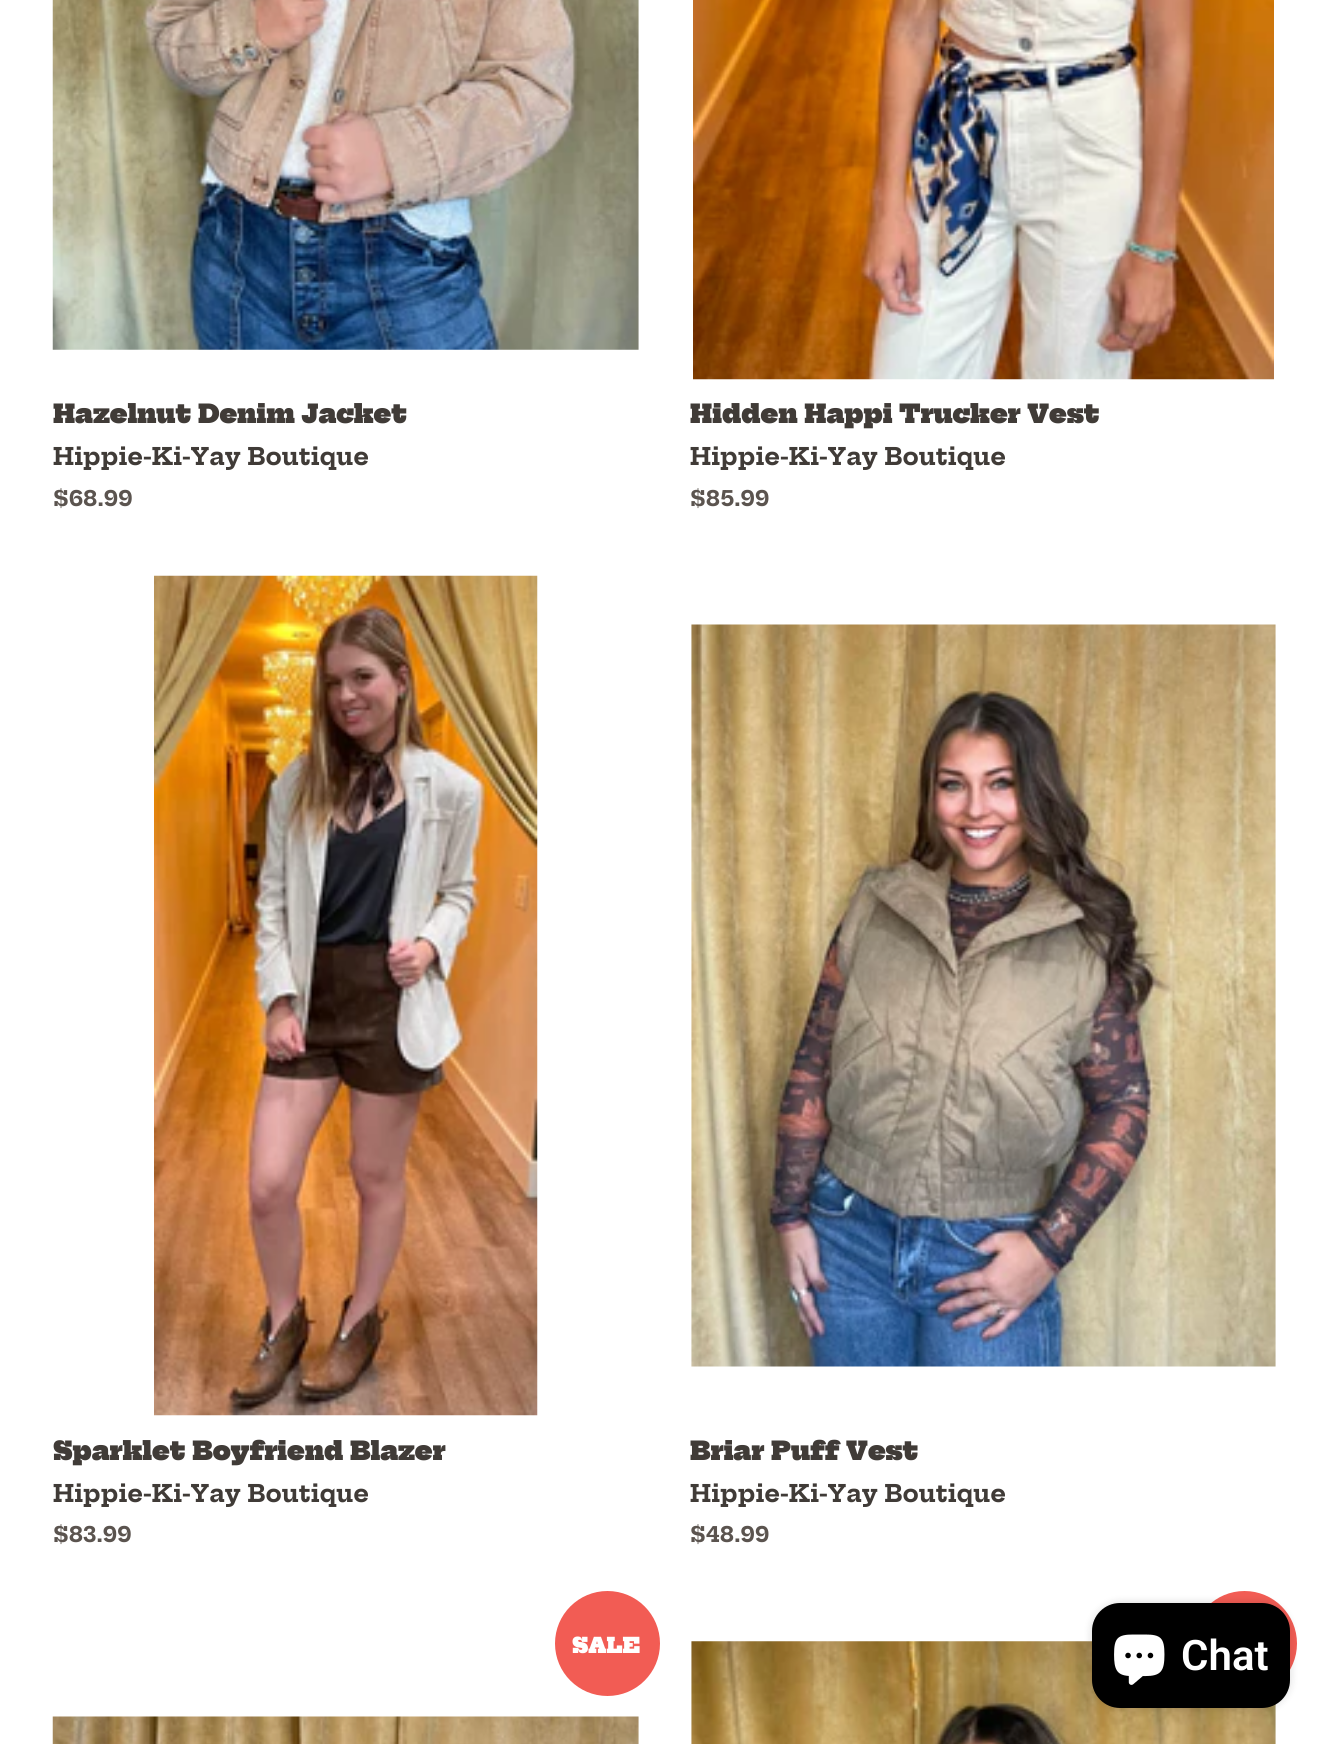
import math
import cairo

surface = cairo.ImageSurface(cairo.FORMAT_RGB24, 1327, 1744)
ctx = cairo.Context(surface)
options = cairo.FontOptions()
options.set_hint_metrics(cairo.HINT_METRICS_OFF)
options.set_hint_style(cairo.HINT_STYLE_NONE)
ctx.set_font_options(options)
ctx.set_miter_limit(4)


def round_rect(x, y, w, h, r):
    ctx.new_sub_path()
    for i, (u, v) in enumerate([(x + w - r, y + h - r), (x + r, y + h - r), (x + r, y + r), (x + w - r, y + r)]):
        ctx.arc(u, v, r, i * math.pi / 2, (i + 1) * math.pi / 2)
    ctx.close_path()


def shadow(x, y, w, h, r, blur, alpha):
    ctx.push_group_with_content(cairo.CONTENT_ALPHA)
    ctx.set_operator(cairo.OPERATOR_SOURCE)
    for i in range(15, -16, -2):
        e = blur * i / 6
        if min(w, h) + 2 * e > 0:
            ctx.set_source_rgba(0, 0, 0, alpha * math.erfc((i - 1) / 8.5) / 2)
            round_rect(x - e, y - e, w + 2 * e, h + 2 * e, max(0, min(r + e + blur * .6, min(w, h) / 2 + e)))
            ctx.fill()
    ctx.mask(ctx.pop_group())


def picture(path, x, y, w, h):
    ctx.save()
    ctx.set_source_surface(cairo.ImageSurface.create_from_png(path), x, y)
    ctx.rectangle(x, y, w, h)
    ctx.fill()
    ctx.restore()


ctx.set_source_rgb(1, 1, 1)
ctx.paint()
picture("img1.png", 52, 0, 587, 350)
ctx.select_font_face("Hepta Slab Black")
ctx.set_font_size(25.25)
ctx.set_source_rgb(0.251, 0.231, 0.216)
ctx.move_to(53, 423)
ctx.show_text("Hazelnut Denim Jacket")
ctx.select_font_face("Hepta Slab", cairo.FONT_SLANT_NORMAL, cairo.FONT_WEIGHT_BOLD)
ctx.set_font_size(23.75)
ctx.move_to(53, 465)
ctx.show_text("Hippie-Ki-Yay Boutique")
ctx.set_font_size(21)
ctx.set_source_rgb(0.357, 0.329, 0.31)
ctx.move_to(53, 506)
ctx.show_text("$68.99")
picture("img2.png", 693, 0, 581, 380)
ctx.select_font_face("Hepta Slab Black")
ctx.set_font_size(25.25)
ctx.set_source_rgb(0.251, 0.231, 0.216)
ctx.move_to(690, 423)
ctx.show_text("Hidden Happi Trucker Vest")
ctx.select_font_face("Hepta Slab", cairo.FONT_SLANT_NORMAL, cairo.FONT_WEIGHT_BOLD)
ctx.set_font_size(23.75)
ctx.move_to(690, 465)
ctx.show_text("Hippie-Ki-Yay Boutique")
ctx.set_font_size(21)
ctx.set_source_rgb(0.357, 0.329, 0.31)
ctx.move_to(690, 506)
ctx.show_text("$85.99")
picture("img3.png", 154, 575, 384, 841)
ctx.select_font_face("Hepta Slab Black")
ctx.set_font_size(25.25)
ctx.set_source_rgb(0.251, 0.231, 0.216)
ctx.move_to(53, 1460)
ctx.show_text("Sparklet Boyfriend Blazer")
ctx.select_font_face("Hepta Slab", cairo.FONT_SLANT_NORMAL, cairo.FONT_WEIGHT_BOLD)
ctx.set_font_size(23.75)
ctx.move_to(53, 1502)
ctx.show_text("Hippie-Ki-Yay Boutique")
ctx.set_font_size(21)
ctx.set_source_rgb(0.357, 0.329, 0.31)
ctx.move_to(53, 1542)
ctx.show_text("$83.99")
picture("img4.png", 691, 624, 585, 743)
ctx.select_font_face("Hepta Slab Black")
ctx.set_font_size(25.25)
ctx.set_source_rgb(0.251, 0.231, 0.216)
ctx.move_to(690, 1460)
ctx.show_text("Briar Puff Vest")
ctx.select_font_face("Hepta Slab", cairo.FONT_SLANT_NORMAL, cairo.FONT_WEIGHT_BOLD)
ctx.set_font_size(23.75)
ctx.move_to(690, 1502)
ctx.show_text("Hippie-Ki-Yay Boutique")
ctx.set_font_size(21)
ctx.set_source_rgb(0.357, 0.329, 0.31)
ctx.move_to(690, 1542)
ctx.show_text("$48.99")
ctx.set_source_rgb(0.949, 0.361, 0.329)
ctx.new_path()
ctx.arc(607.5, 1643.5, 52.5, 0, 2 * math.pi)
ctx.fill()
ctx.select_font_face("Hepta Slab Black")
ctx.set_source_rgb(1, 1, 1)
ctx.move_to(572, 1653)
ctx.show_text("SALE")
picture("img5.png", 52, 1716, 587, 28)
picture("img6.png", 691, 1641, 585, 103)
ctx.set_source_rgb(0.949, 0.361, 0.329)
ctx.arc(1244.5, 1643.5, 52.5, 0, 2 * math.pi)
ctx.fill()
ctx.set_source_rgb(0, 0, 0)
shadow(1092, 1603, 198, 105, 28, 4.5, 0.15)
ctx.set_source_rgb(0, 0, 0)
round_rect(1092, 1603, 198, 105, 28)
ctx.fill()
picture("img7.png", 1114, 1634, 51, 51)
ctx.select_font_face("Roboto SemiBold")
ctx.set_font_size(42)
ctx.set_source_rgb(1, 1, 1)
ctx.move_to(1181, 1670)
ctx.show_text("Chat")
surface.write_to_png("page.png")
